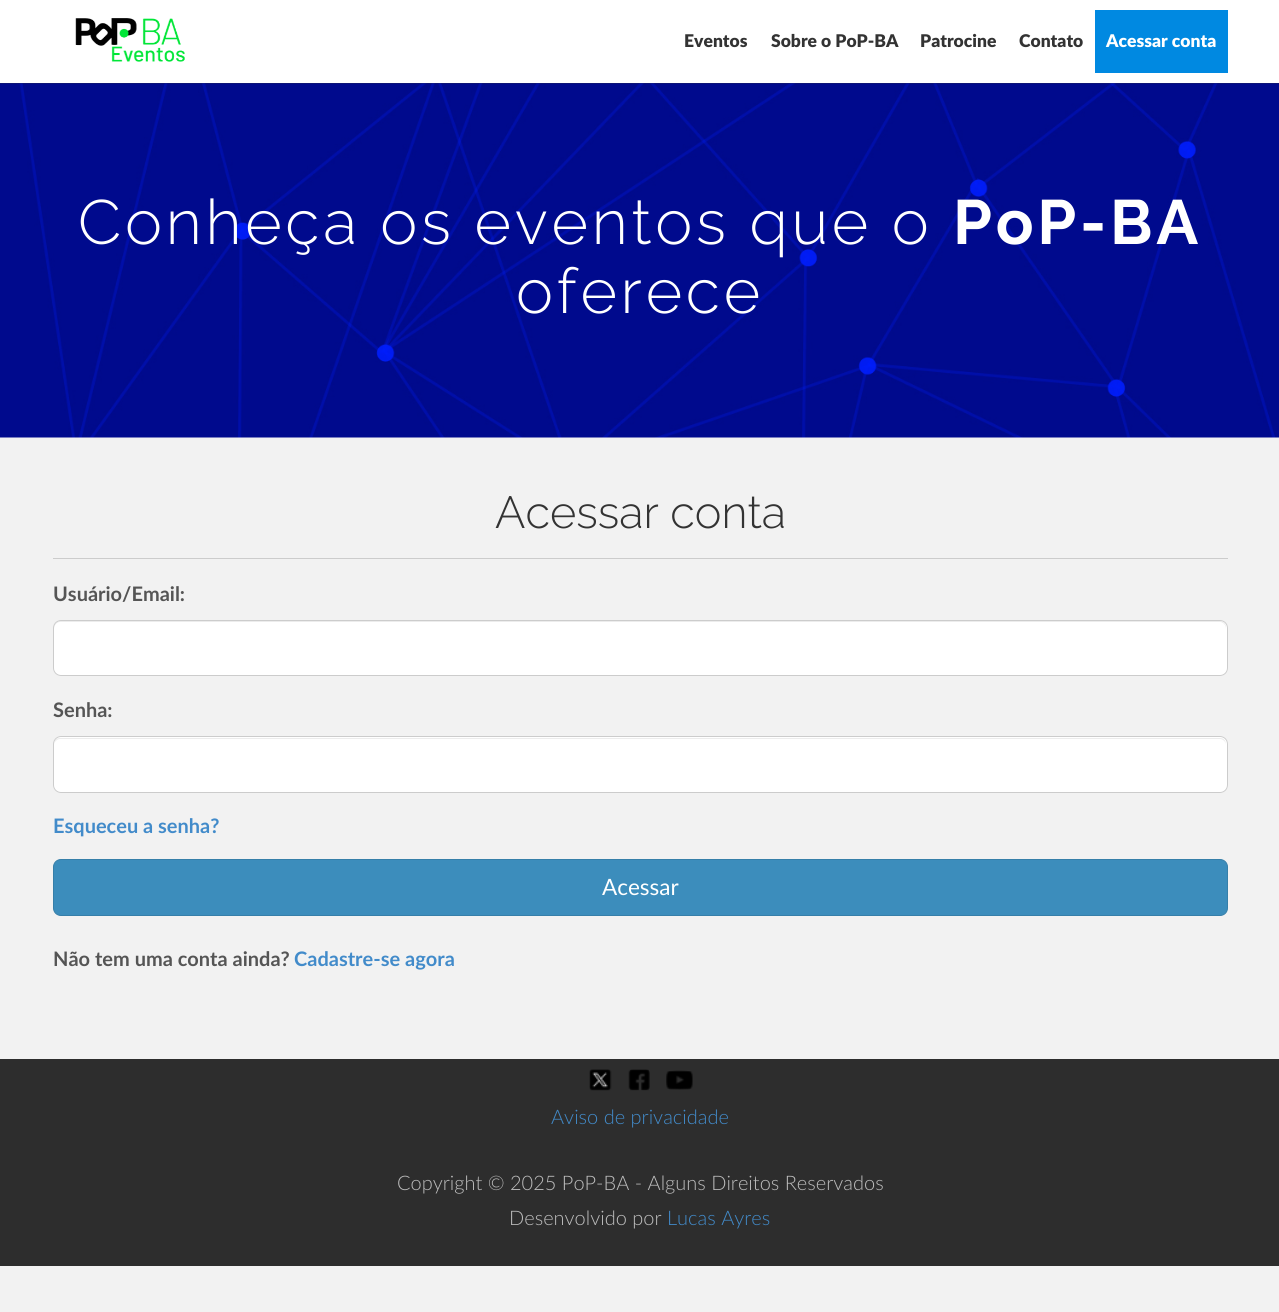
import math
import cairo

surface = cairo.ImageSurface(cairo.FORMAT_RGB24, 1279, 1312)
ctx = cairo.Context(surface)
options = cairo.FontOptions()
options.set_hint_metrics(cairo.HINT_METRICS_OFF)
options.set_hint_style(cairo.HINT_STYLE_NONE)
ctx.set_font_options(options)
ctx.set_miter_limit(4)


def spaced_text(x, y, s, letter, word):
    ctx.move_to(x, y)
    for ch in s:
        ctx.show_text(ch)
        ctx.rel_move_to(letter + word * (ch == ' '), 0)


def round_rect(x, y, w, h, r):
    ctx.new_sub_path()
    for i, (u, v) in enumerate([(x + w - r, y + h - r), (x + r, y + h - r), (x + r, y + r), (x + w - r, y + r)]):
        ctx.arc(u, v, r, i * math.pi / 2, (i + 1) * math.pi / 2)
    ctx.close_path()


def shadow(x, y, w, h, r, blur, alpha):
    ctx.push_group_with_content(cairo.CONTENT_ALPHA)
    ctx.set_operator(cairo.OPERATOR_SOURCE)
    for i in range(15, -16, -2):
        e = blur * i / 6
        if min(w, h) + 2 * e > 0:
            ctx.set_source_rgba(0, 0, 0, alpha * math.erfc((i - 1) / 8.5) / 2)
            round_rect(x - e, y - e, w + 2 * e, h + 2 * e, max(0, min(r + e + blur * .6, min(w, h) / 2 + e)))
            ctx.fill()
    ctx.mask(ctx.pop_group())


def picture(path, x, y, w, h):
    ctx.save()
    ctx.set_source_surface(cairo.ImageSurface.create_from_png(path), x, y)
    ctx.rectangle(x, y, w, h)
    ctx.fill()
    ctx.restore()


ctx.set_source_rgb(0.949, 0.949, 0.949)
ctx.paint()
picture("img2.png", 0, 83, 1279, 355)
ctx.set_source_rgb(0.2, 0.2, 0.2)
shadow(0, 0, 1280, 83, 0, 0.5, 1)
ctx.set_source_rgb(1, 1, 1)
ctx.rectangle(0, 0, 1279, 83)
ctx.fill()
picture("img1.png", 75, 18, 110, 44)
ctx.select_font_face("Lato Black")
ctx.set_font_size(17.5)
ctx.set_source_rgb(0.2, 0.2, 0.2)
ctx.move_to(684, 47)
ctx.show_text("Eventos")
ctx.move_to(771, 47)
ctx.show_text("Sobre o PoP-BA")
ctx.move_to(920, 47)
ctx.show_text("Patrocine")
ctx.move_to(1019, 47)
ctx.show_text("Contato")
ctx.set_source_rgb(0, 0.537, 0.882)
ctx.rectangle(1095, 10, 133, 63)
ctx.fill()
ctx.set_source_rgb(1, 1, 1)
ctx.move_to(1106, 47)
ctx.show_text("Acessar conta")
ctx.select_font_face("Raleway Light")
ctx.set_font_size(62.5)
spaced_text(78, 244, "Conheça os eventos que o", 3.75, 0)
ctx.select_font_face("Raleway", cairo.FONT_SLANT_NORMAL, cairo.FONT_WEIGHT_BOLD)
spaced_text(953, 244, "PoP-BA", 3.75, 0)
ctx.select_font_face("Raleway Light")
spaced_text(516, 313, "oferece", 3.75, 0)
ctx.set_font_size(45)
ctx.set_source_rgb(0.2, 0.2, 0.2)
ctx.move_to(495, 528)
ctx.show_text("Acessar conta")
ctx.set_source_rgb(0.8, 0.8, 0.8)
ctx.rectangle(53, 558, 1175, 1)
ctx.fill()
ctx.select_font_face("Lato", cairo.FONT_SLANT_NORMAL, cairo.FONT_WEIGHT_BOLD)
ctx.set_font_size(20)
ctx.set_source_rgb(0.333, 0.333, 0.333)
ctx.move_to(53, 601)
ctx.show_text("Usuário/Email:")
ctx.set_source_rgb(1, 1, 1)
round_rect(53, 620, 1175, 56, 8)
ctx.fill()
ctx.set_source_rgb(0.925, 0.925, 0.925)
ctx.new_path()
ctx.move_to(60, 622)
ctx.line_to(1220, 622)
ctx.curve_to(1223, 622, 1226, 625, 1226, 629)
ctx.line_to(1226, 627)
ctx.curve_to(1226, 624, 1223, 621, 1220, 621)
ctx.line_to(60, 621)
ctx.curve_to(57, 621, 54, 624, 54, 627)
ctx.line_to(54, 629)
ctx.curve_to(54, 625, 57, 622, 60, 622)
ctx.close_path()
ctx.fill()
round_rect(53.5, 620.5, 1174, 55, 7.5)
ctx.set_source_rgb(0.8, 0.8, 0.8)
ctx.set_line_width(1)
ctx.stroke()
ctx.set_source_rgb(0.333, 0.333, 0.333)
ctx.move_to(53, 717)
ctx.show_text("Senha:")
ctx.set_source_rgb(1, 1, 1)
round_rect(53, 736, 1175, 57, 8)
ctx.fill()
ctx.set_source_rgb(0.925, 0.925, 0.925)
ctx.new_path()
ctx.move_to(60, 739)
ctx.line_to(1220, 739)
ctx.curve_to(1223, 739, 1226, 742, 1226, 745)
ctx.curve_to(1226, 741, 1224, 738, 1220, 738)
ctx.line_to(60, 738)
ctx.curve_to(56, 738, 54, 741, 54, 745)
ctx.curve_to(54, 742, 57, 739, 60, 739)
ctx.close_path()
ctx.fill()
round_rect(53.5, 736.5, 1174, 56, 7.5)
ctx.set_source_rgb(0.8, 0.8, 0.8)
ctx.stroke()
ctx.set_source_rgb(0.259, 0.545, 0.792)
ctx.move_to(53, 833)
ctx.show_text("Esqueceu a senha?")
ctx.set_source_rgb(0.235, 0.553, 0.737)
round_rect(53.5, 859.5, 1174, 56, 7.5)
ctx.fill_preserve()
ctx.set_source_rgb(0.212, 0.498, 0.663)
ctx.stroke()
ctx.select_font_face("Lato")
ctx.set_font_size(22.5)
ctx.set_source_rgb(1, 1, 1)
ctx.move_to(602, 895)
ctx.show_text("Acessar")
ctx.select_font_face("Lato", cairo.FONT_SLANT_NORMAL, cairo.FONT_WEIGHT_BOLD)
ctx.set_font_size(20)
ctx.set_source_rgb(0.333, 0.333, 0.333)
ctx.move_to(53, 966)
ctx.show_text("Não tem uma conta ainda?")
ctx.set_source_rgb(0.259, 0.545, 0.792)
ctx.move_to(294, 966)
ctx.show_text("Cadastre-se agora")
ctx.set_source_rgb(0.176, 0.176, 0.176)
ctx.rectangle(0, 1059, 1279, 207)
ctx.fill()
picture("img3.png", 589, 1069, 23, 22)
picture("img4.png", 628, 1069, 22, 22)
picture("img5.png", 666, 1070, 27, 20)
ctx.select_font_face("Lato Light")
ctx.set_source_rgb(0.259, 0.545, 0.792)
ctx.move_to(551, 1124)
ctx.show_text("Aviso de privacidade")
ctx.set_source_rgb(0.741, 0.741, 0.741)
ctx.move_to(397, 1190)
ctx.show_text("Copyright © 2025 PoP-BA - Alguns Direitos Reservados")
ctx.move_to(509, 1225)
ctx.show_text("Desenvolvido por")
ctx.set_source_rgb(0.259, 0.545, 0.792)
ctx.move_to(667, 1225)
ctx.show_text("Lucas Ayres")
surface.write_to_png("page.png")
